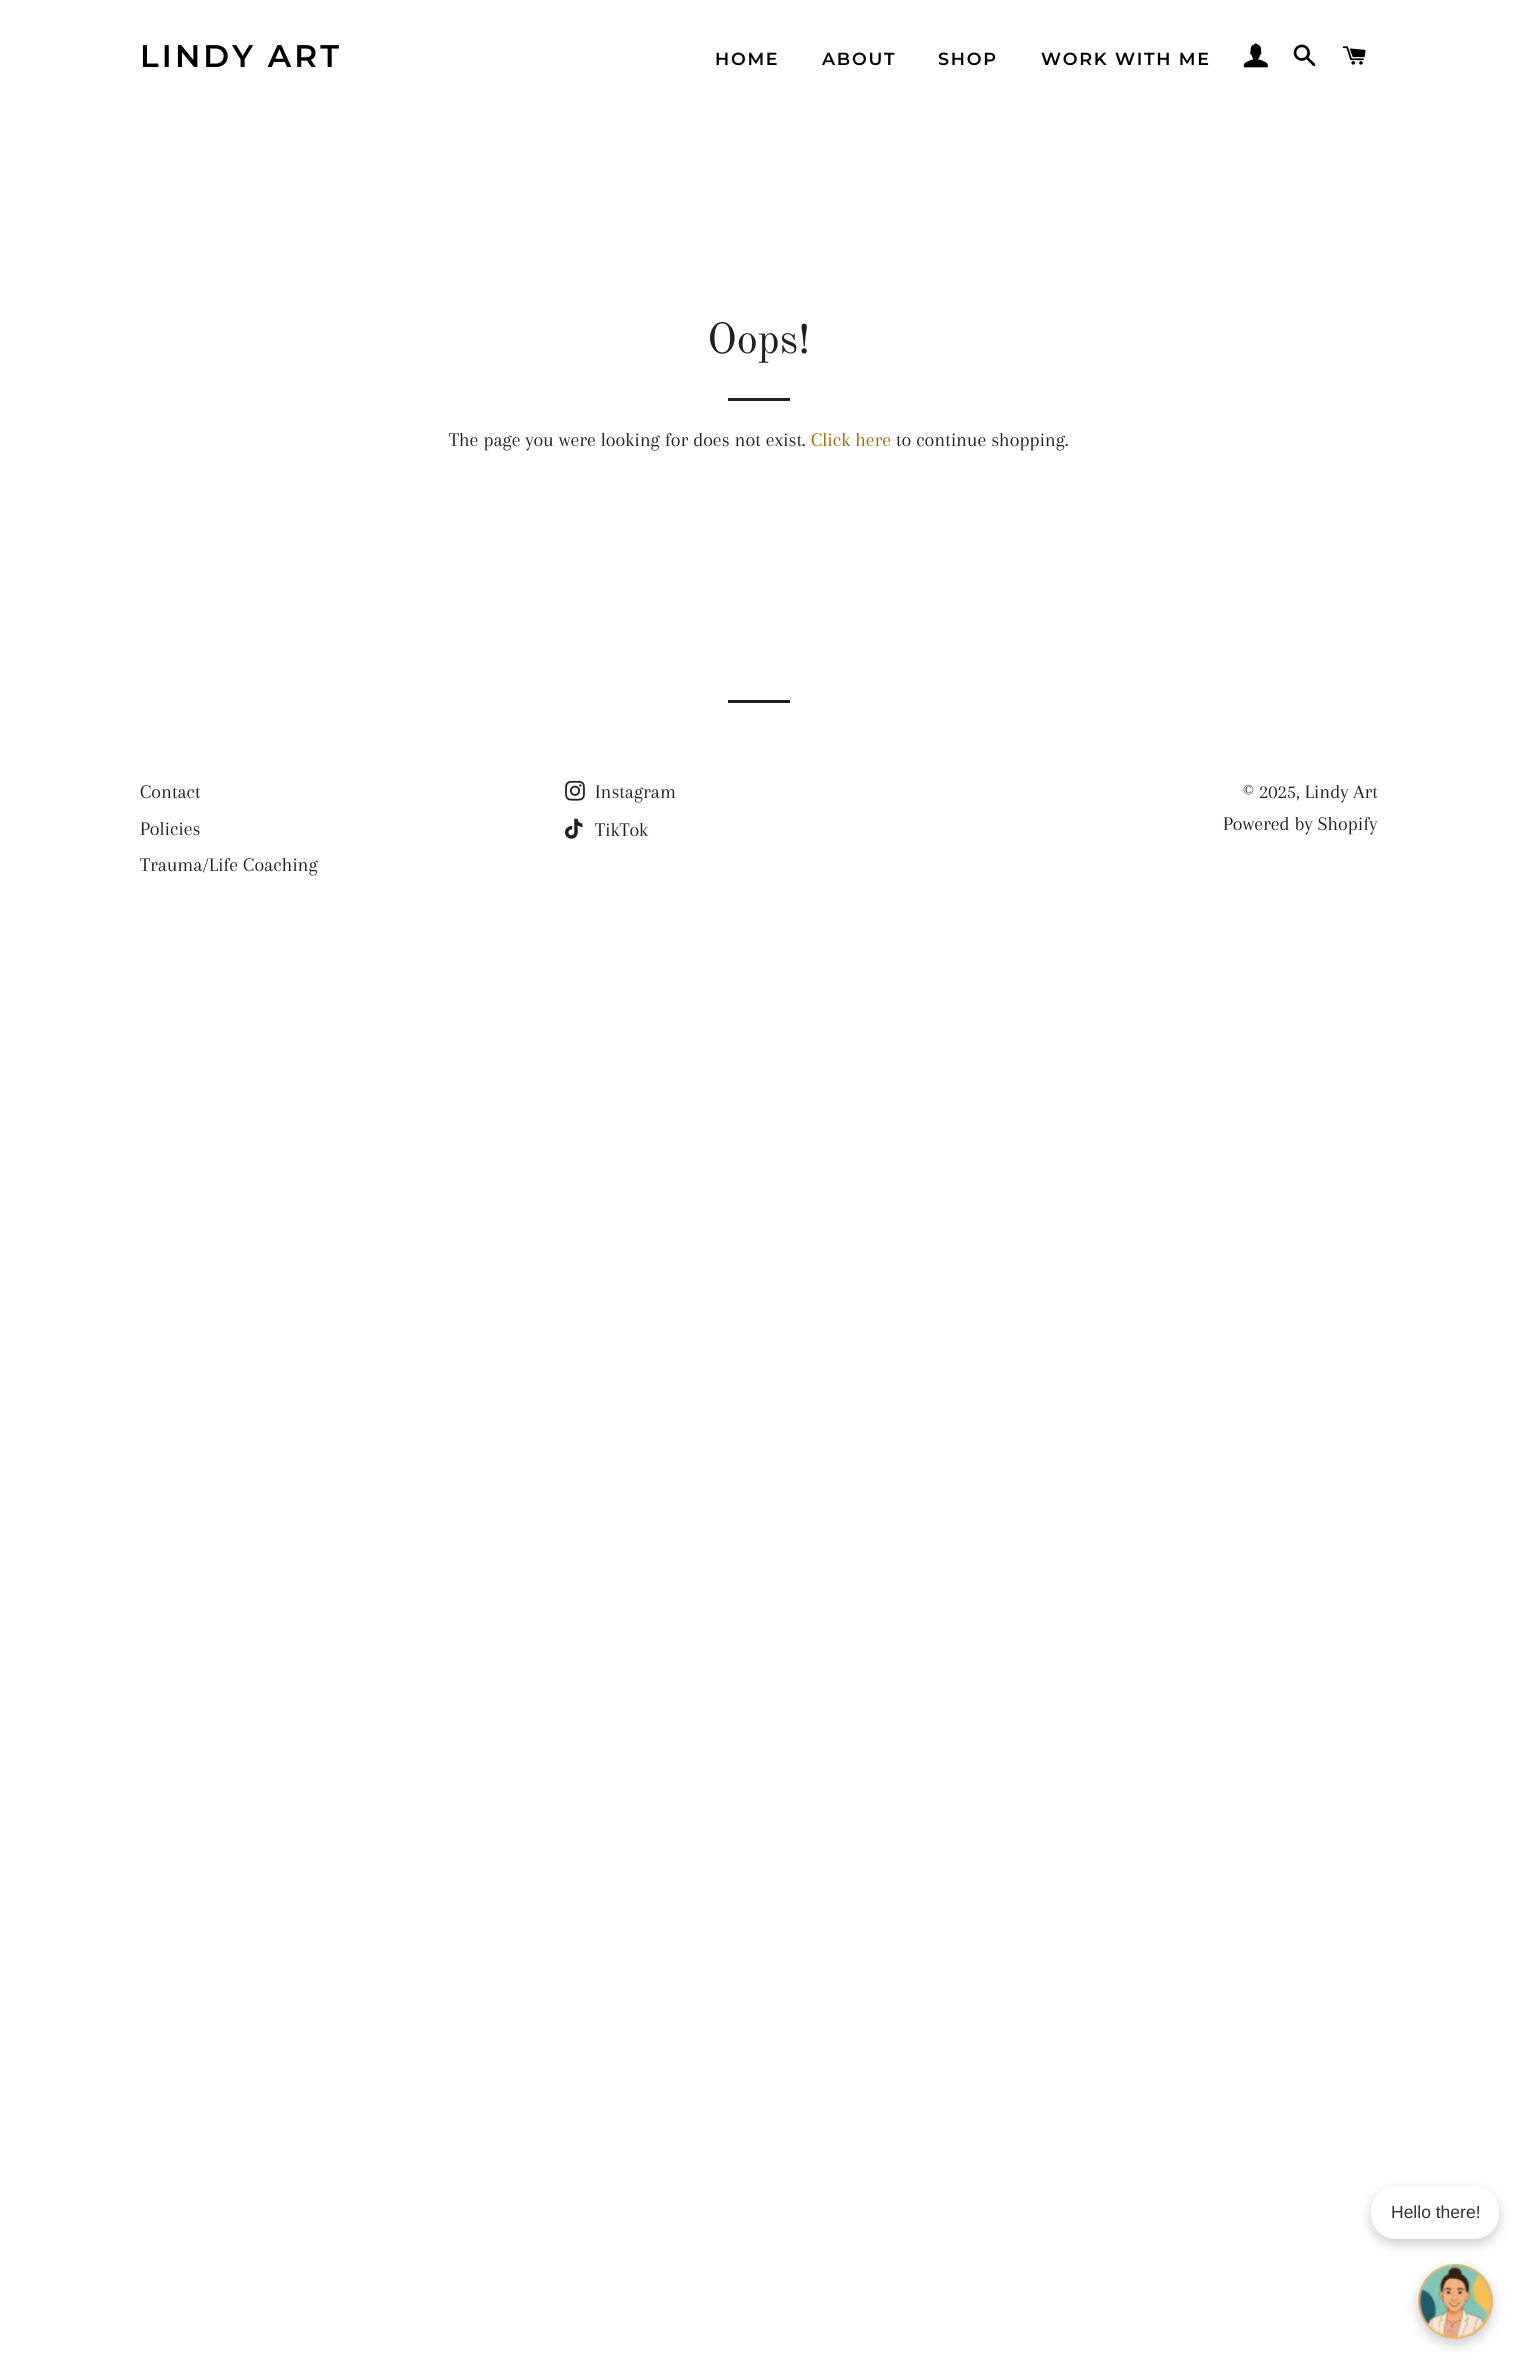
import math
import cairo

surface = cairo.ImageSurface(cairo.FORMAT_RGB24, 1517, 2363)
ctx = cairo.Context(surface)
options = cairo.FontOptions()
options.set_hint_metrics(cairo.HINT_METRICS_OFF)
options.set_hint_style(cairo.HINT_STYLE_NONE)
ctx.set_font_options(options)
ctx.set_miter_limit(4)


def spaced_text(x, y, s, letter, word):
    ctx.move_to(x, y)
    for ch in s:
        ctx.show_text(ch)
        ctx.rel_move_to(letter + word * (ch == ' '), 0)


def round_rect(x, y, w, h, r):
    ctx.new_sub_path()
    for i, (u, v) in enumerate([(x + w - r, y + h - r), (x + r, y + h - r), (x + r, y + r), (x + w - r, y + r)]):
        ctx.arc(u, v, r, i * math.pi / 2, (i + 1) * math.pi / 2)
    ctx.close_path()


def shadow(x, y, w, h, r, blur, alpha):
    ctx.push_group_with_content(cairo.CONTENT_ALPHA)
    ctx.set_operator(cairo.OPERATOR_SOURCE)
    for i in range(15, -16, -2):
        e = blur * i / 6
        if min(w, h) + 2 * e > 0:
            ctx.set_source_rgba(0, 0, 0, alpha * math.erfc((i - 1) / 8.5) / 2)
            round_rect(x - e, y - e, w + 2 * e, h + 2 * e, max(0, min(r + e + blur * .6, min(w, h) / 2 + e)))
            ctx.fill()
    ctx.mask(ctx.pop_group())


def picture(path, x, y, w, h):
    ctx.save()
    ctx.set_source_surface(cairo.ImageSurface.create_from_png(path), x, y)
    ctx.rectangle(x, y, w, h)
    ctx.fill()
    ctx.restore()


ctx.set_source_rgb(1, 1, 1)
ctx.paint()
ctx.select_font_face("Montserrat SemiBold")
ctx.set_font_size(31.25)
ctx.set_source_rgb(0, 0, 0)
spaced_text(140, 67, "LINDY ART", 3.1, 0)
ctx.set_font_size(17.5)
spaced_text(715, 65, "HOME", 1.75, 0)
spaced_text(822, 65, "ABOUT", 1.75, 0)
spaced_text(938, 65, "SHOP", 1.75, 0)
spaced_text(1041, 65, "WORK WITH ME", 1.75, 0)
picture("img1.png", 1243, 43, 25, 25)
picture("img2.png", 1293, 44, 23, 23)
picture("img3.png", 1342, 46, 24, 19)
ctx.select_font_face("Old Standard TT")
ctx.set_font_size(42.5)
ctx.set_source_rgb(0.122, 0.125, 0.129)
ctx.move_to(707, 353)
ctx.show_text("Oops!")
ctx.rectangle(728, 398, 62, 3)
ctx.fill()
ctx.select_font_face("Arapey")
ctx.set_font_size(20)
ctx.move_to(449, 446)
ctx.show_text("The page you were looking for does not exist.")
ctx.set_source_rgb(0.647, 0.4, 0)
ctx.move_to(811, 446)
ctx.show_text("Click here")
ctx.set_source_rgb(0.122, 0.125, 0.129)
ctx.move_to(896, 446)
ctx.show_text("to continue shopping.")
ctx.rectangle(728, 700, 62, 3)
ctx.fill()
ctx.move_to(140, 798)
ctx.show_text("Contact")
ctx.move_to(140, 835)
ctx.show_text("Policies")
ctx.move_to(140, 871)
ctx.show_text("Trauma/Life Coaching")
picture("img4.png", 565, 780, 20, 21)
ctx.move_to(595, 798)
ctx.show_text("Instagram")
picture("img5.png", 565, 818, 18, 21)
ctx.move_to(595, 836)
ctx.show_text("TikTok")
ctx.move_to(1243, 798)
ctx.show_text("© 2025, Lindy Art")
ctx.move_to(1223, 830)
ctx.show_text("Powered by Shopify")
ctx.set_source_rgb(0, 0, 0)
shadow(1371, 2191, 128, 53, 25, 6, 0.2)
ctx.set_source_rgb(1, 1, 1)
round_rect(1371, 2186, 128, 53, 25)
ctx.fill()
ctx.select_font_face("Liberation Sans")
ctx.set_font_size(17.5)
ctx.set_source_rgb(0.2, 0.2, 0.2)
ctx.move_to(1391, 2218)
ctx.show_text("Hello there!")
ctx.set_source_rgb(0, 0, 0)
shadow(1418, 2269, 75, 75, 37.5, 6, 0.2)
ctx.set_source_rgb(0.918, 0.714, 0.463)
ctx.arc(1455.5, 2301.5, 37.5, 0, 2 * math.pi)
ctx.fill()
picture("img6.png", 1419, 2264, 72, 74)
surface.write_to_png("page.png")
